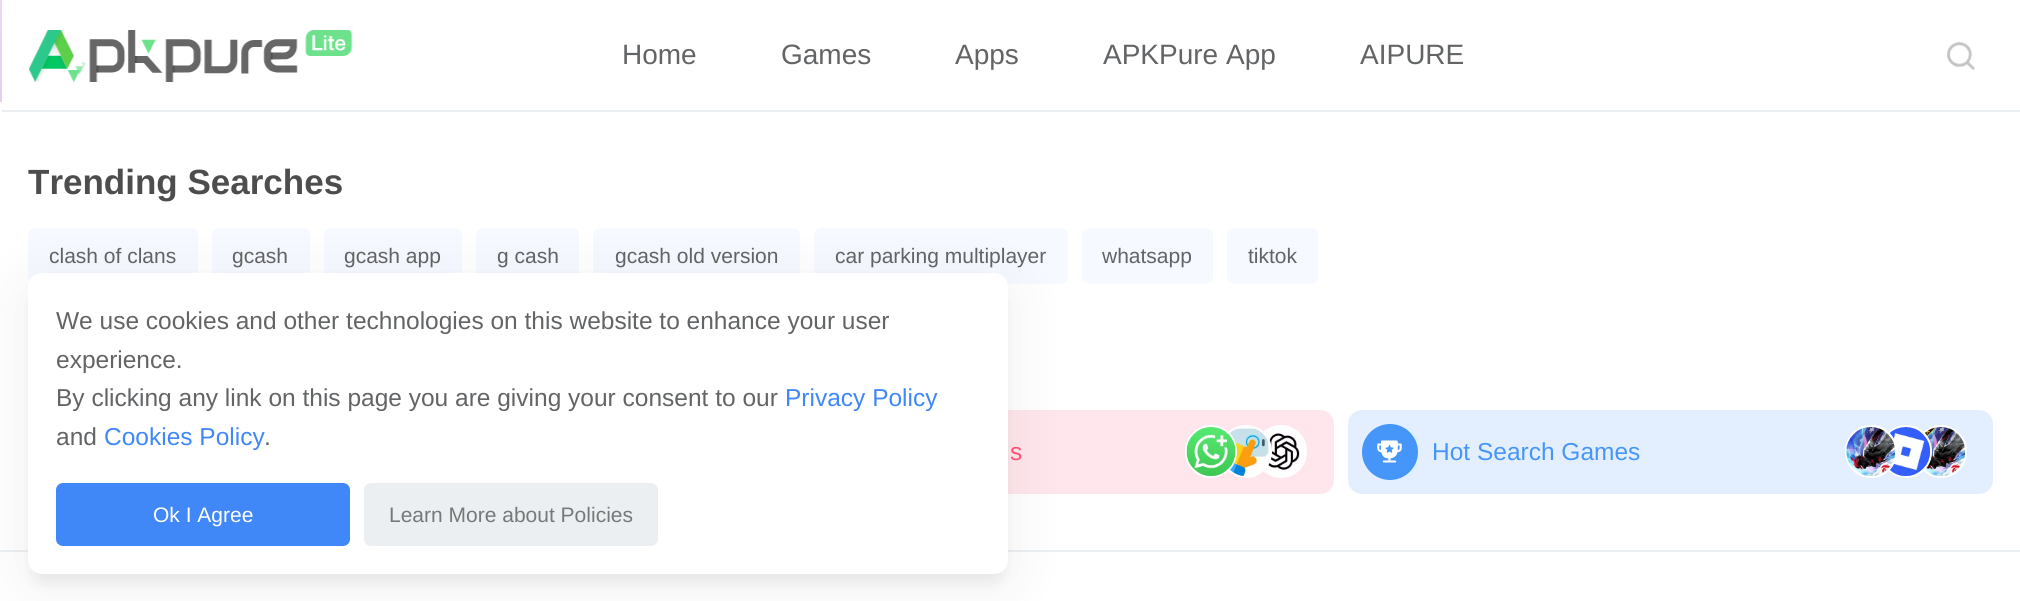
import math
import cairo

surface = cairo.ImageSurface(cairo.FORMAT_RGB24, 2020, 601)
ctx = cairo.Context(surface)
options = cairo.FontOptions()
options.set_hint_metrics(cairo.HINT_METRICS_OFF)
options.set_hint_style(cairo.HINT_STYLE_NONE)
ctx.set_font_options(options)
ctx.set_miter_limit(4)


def round_rect(x, y, w, h, r):
    ctx.new_sub_path()
    for i, (u, v) in enumerate([(x + w - r, y + h - r), (x + r, y + h - r), (x + r, y + r), (x + w - r, y + r)]):
        ctx.arc(u, v, r, i * math.pi / 2, (i + 1) * math.pi / 2)
    ctx.close_path()


def shadow(x, y, w, h, r, blur, alpha):
    ctx.push_group_with_content(cairo.CONTENT_ALPHA)
    ctx.set_operator(cairo.OPERATOR_SOURCE)
    for i in range(15, -16, -2):
        e = blur * i / 6
        if min(w, h) + 2 * e > 0:
            ctx.set_source_rgba(0, 0, 0, alpha * math.erfc((i - 1) / 8.5) / 2)
            round_rect(x - e, y - e, w + 2 * e, h + 2 * e, max(0, min(r + e + blur * .6, min(w, h) / 2 + e)))
            ctx.fill()
    ctx.mask(ctx.pop_group())


def picture(path, x, y, w, h):
    ctx.save()
    ctx.set_source_surface(cairo.ImageSurface.create_from_png(path), x, y)
    ctx.rectangle(x, y, w, h)
    ctx.fill()
    ctx.restore()


ctx.set_source_rgb(1, 1, 1)
ctx.paint()
ctx.set_source_rgb(0.925, 0.937, 0.945)
ctx.rectangle(2, 110, 2018, 2)
ctx.fill()
picture("img1.png", 29, 30, 324, 52)
ctx.select_font_face("Liberation Sans")
ctx.set_font_size(28)
ctx.set_source_rgb(0.384, 0.392, 0.4)
ctx.move_to(622, 64)
ctx.show_text("Home")
ctx.move_to(781, 64)
ctx.show_text("Games")
ctx.move_to(955, 64)
ctx.show_text("Apps")
ctx.move_to(1103, 64)
ctx.show_text("APKPure App")
ctx.move_to(1360, 64)
ctx.show_text("AIPURE")
picture("img2.png", 1947, 42, 28, 29)
gradient = cairo.RadialGradient(0, 0, 0, 0, 0, 1)
gradient.set_matrix(cairo.Matrix(1 / 2636, 0, 0, 1 / 574, -1 * 438 / 2636, -1 * 195 / 574))
gradient.add_color_stop_rgba(0, 0.855, 0.682, 0.89, 1)
gradient.add_color_stop_rgba(0.74, 0.953, 0.973, 0.984, 1)
ctx.set_source(gradient)
ctx.rectangle(0, 0, 2, 102)
ctx.fill()
gradient = cairo.LinearGradient(-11, -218, 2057, -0.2)
gradient.add_color_stop_rgba(0.45, 0.941, 0.961, 0.988, 0.2)
gradient.add_color_stop_rgba(1, 0.694, 0.769, 0.988, 0.2)
ctx.set_source(gradient)
ctx.rectangle(0, 0, 2, 102)
ctx.fill()
ctx.select_font_face("Liberation Sans", cairo.FONT_SLANT_NORMAL, cairo.FONT_WEIGHT_BOLD)
ctx.set_font_size(35)
ctx.set_source_rgb(0.302, 0.302, 0.302)
ctx.move_to(28, 194)
ctx.show_text("Trending Searches")
ctx.set_source_rgb(0.961, 0.976, 1)
round_rect(28, 228, 170, 56, 7)
ctx.fill()
ctx.select_font_face("Liberation Sans")
ctx.set_font_size(21)
ctx.set_source_rgb(0.384, 0.392, 0.4)
ctx.move_to(49, 263)
ctx.show_text("clash of clans")
ctx.set_source_rgb(0.961, 0.976, 1)
round_rect(212, 228, 98, 56, 7)
ctx.fill()
ctx.set_source_rgb(0.384, 0.392, 0.4)
ctx.move_to(232, 263)
ctx.show_text("gcash")
ctx.set_source_rgb(0.961, 0.976, 1)
round_rect(324, 228, 138, 56, 7)
ctx.fill()
ctx.set_source_rgb(0.384, 0.392, 0.4)
ctx.move_to(344, 263)
ctx.show_text("gcash app")
ctx.set_source_rgb(0.961, 0.976, 1)
round_rect(476, 228, 103, 56, 7)
ctx.fill()
ctx.set_source_rgb(0.384, 0.392, 0.4)
ctx.move_to(497, 263)
ctx.show_text("g cash")
ctx.set_source_rgb(0.961, 0.976, 1)
round_rect(593, 228, 207, 56, 7)
ctx.fill()
ctx.set_source_rgb(0.384, 0.392, 0.4)
ctx.move_to(615, 263)
ctx.show_text("gcash old version")
ctx.set_source_rgb(0.961, 0.976, 1)
round_rect(814, 228, 254, 56, 7)
ctx.fill()
ctx.set_source_rgb(0.384, 0.392, 0.4)
ctx.move_to(835, 263)
ctx.show_text("car parking multiplayer")
ctx.set_source_rgb(0.961, 0.976, 1)
round_rect(1082, 228, 131, 56, 7)
ctx.fill()
ctx.set_source_rgb(0.384, 0.392, 0.4)
ctx.move_to(1102, 263)
ctx.show_text("whatsapp")
ctx.set_source_rgb(0.961, 0.976, 1)
round_rect(1227, 228, 91, 56, 7)
ctx.fill()
ctx.set_source_rgb(0.384, 0.392, 0.4)
ctx.move_to(1248, 263)
ctx.show_text("tiktok")
ctx.set_source_rgb(1, 0.902, 0.922)
round_rect(688, 410, 646, 84, 14)
ctx.fill()
ctx.set_font_size(24.5)
ctx.set_source_rgb(1, 0.333, 0.467)
ctx.move_to(1010, 460)
ctx.show_text("s")
ctx.set_source_rgb(1, 1, 1)
round_rect(1256, 426, 50, 51, 25)
ctx.fill_preserve()
ctx.stroke()
picture("img5.png", 1264, 433, 36, 37)
round_rect(1221, 426, 50, 51, 25)
ctx.fill_preserve()
ctx.stroke()
picture("img4.png", 1228, 427, 41, 49)
round_rect(1186, 426, 50, 51, 25)
ctx.stroke()
picture("img3.png", 1186, 427, 50, 49)
ctx.set_source_rgb(0.89, 0.937, 0.996)
round_rect(1348, 410, 645, 84, 14)
ctx.fill()
ctx.set_source_rgb(0.275, 0.588, 0.976)
ctx.arc(1390, 452, 28, 0, 2 * math.pi)
ctx.fill()
picture("img6.png", 1377, 440, 25, 23)
ctx.move_to(1432, 460)
ctx.show_text("Hot Search Games")
ctx.set_source_rgb(1, 1, 1)
round_rect(1916, 426, 50, 51, 25)
ctx.fill_preserve()
ctx.stroke()
picture("img9.png", 1924, 427, 42, 49)
round_rect(1881, 426, 50, 51, 25)
ctx.fill_preserve()
ctx.stroke()
picture("img8.png", 1889, 427, 42, 49)
round_rect(1846, 426, 50, 51, 25)
ctx.fill_preserve()
ctx.stroke()
picture("img7.png", 1846, 427, 50, 49)
ctx.set_source_rgb(0.925, 0.937, 0.945)
ctx.rectangle(0, 550, 2020, 2)
ctx.fill()
ctx.set_source_rgb(0, 0, 0)
shadow(19, 275, 998, 318, 23, 26, 0.05)
shadow(37, 296, 962, 283, 5, 9, 0.08)
ctx.set_source_rgb(1, 1, 1)
round_rect(28, 273, 980, 301, 14)
ctx.fill()
ctx.set_source_rgb(0.384, 0.392, 0.4)
ctx.move_to(56, 329)
ctx.show_text("We use cookies and other technologies on this website to enhance your user")
ctx.move_to(56, 368)
ctx.show_text("experience.")
ctx.move_to(56, 406)
ctx.show_text("By clicking any link on this page you are giving your consent to our")
ctx.set_source_rgb(0.251, 0.529, 0.969)
ctx.move_to(785, 406)
ctx.show_text("Privacy Policy")
ctx.set_source_rgb(0.384, 0.392, 0.4)
ctx.move_to(56, 445)
ctx.show_text("and")
ctx.set_source_rgb(0.251, 0.529, 0.969)
ctx.move_to(104, 445)
ctx.show_text("Cookies Policy")
ctx.set_source_rgb(0.384, 0.392, 0.4)
ctx.move_to(264, 445)
ctx.show_text(".")
ctx.set_source_rgb(0.251, 0.529, 0.969)
round_rect(56, 483, 294, 63, 7)
ctx.fill()
ctx.set_font_size(21)
ctx.set_source_rgb(1, 1, 1)
ctx.move_to(153, 522)
ctx.show_text("Ok I Agree")
ctx.set_source_rgb(0.925, 0.937, 0.945)
round_rect(364, 483, 294, 63, 7)
ctx.fill()
ctx.set_source_rgb(0.463, 0.471, 0.475)
ctx.move_to(389, 522)
ctx.show_text("Learn More about Policies")
surface.write_to_png("page.png")
